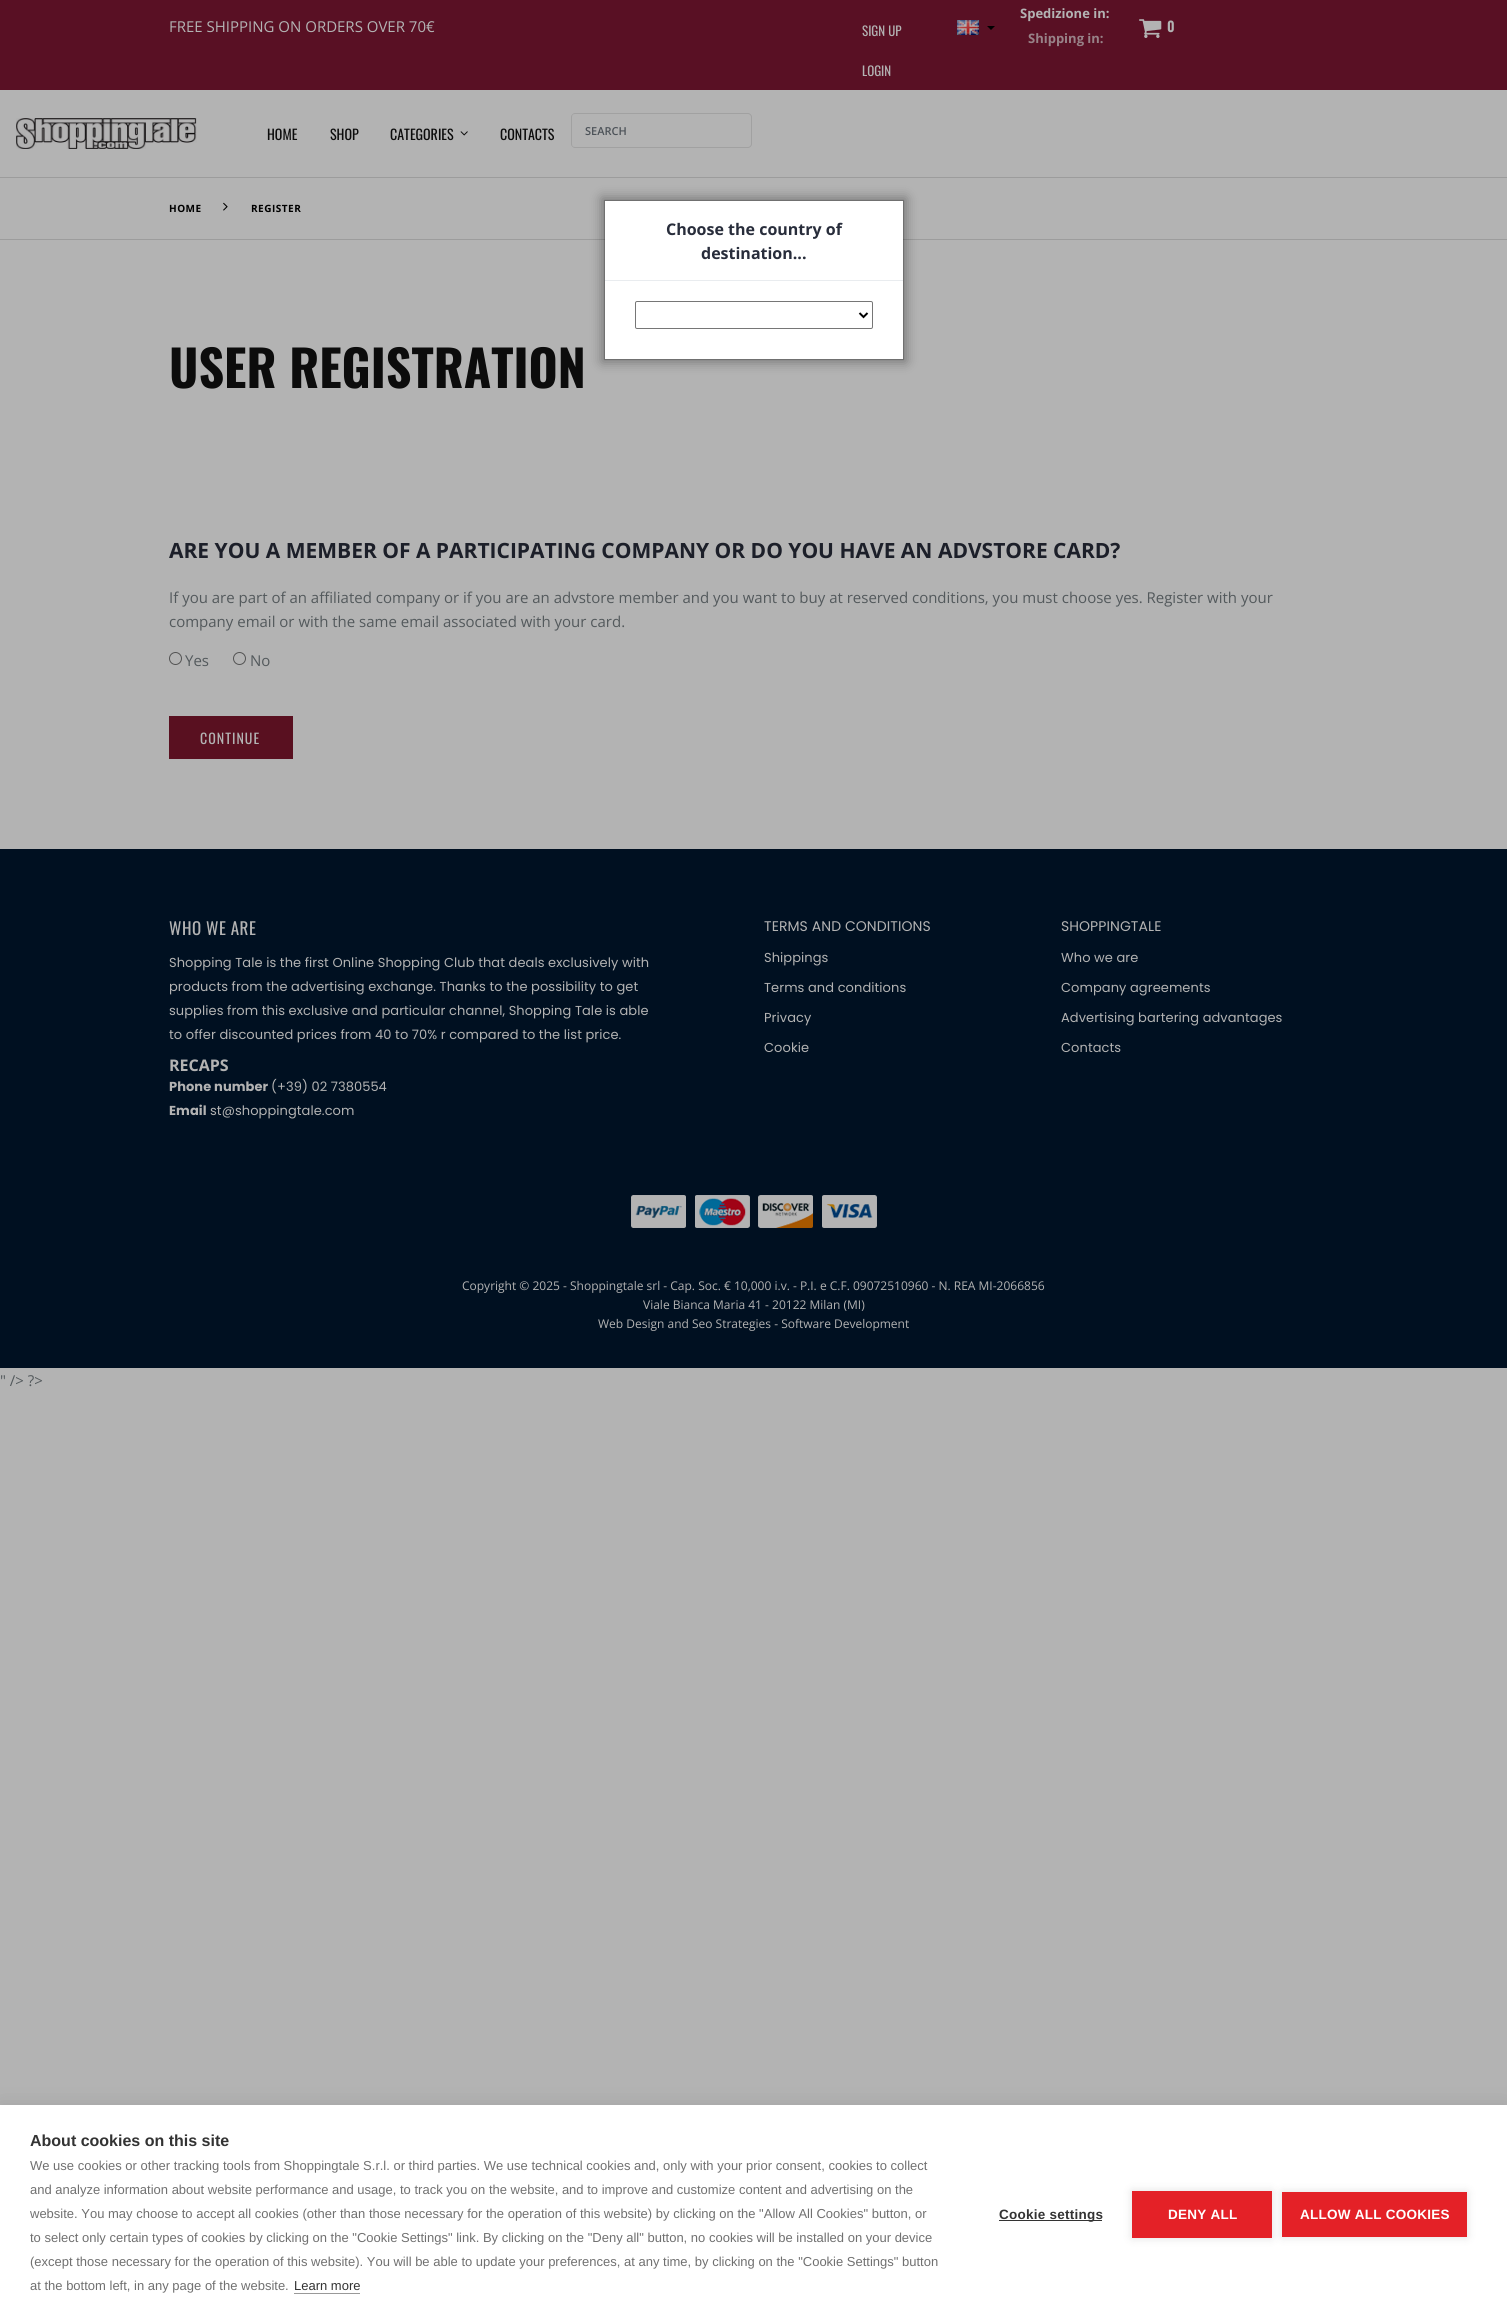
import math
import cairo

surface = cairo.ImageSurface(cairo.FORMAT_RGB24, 1507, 2323)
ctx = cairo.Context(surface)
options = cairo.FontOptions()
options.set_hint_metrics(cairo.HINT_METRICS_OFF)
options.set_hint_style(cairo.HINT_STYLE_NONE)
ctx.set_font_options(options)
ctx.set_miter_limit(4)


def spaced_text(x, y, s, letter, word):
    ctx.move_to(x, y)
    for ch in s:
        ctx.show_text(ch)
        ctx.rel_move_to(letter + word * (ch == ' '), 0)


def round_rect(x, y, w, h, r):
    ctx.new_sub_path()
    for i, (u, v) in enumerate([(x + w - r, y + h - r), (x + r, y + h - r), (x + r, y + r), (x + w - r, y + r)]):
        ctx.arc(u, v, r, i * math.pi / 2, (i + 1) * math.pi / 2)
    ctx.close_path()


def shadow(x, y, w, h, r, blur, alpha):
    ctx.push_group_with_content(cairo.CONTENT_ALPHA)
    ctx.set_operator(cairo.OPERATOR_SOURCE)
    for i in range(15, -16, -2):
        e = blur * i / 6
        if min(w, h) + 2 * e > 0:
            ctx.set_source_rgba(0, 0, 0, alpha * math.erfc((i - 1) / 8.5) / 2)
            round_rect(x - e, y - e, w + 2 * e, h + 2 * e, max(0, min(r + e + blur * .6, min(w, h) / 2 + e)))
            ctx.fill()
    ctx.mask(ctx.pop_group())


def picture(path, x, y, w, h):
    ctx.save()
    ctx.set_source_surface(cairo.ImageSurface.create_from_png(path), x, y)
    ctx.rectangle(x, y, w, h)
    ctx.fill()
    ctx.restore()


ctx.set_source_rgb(0.702, 0.702, 0.702)
ctx.paint()
ctx.set_source_rgb(0.349, 0.063, 0.141)
ctx.rectangle(0, 0, 1507, 90)
ctx.fill()
ctx.select_font_face("Open Sans")
ctx.set_font_size(15)
ctx.set_source_rgb(0.702, 0.702, 0.702)
ctx.move_to(169, 32)
ctx.show_text("FREE SHIPPING ON ORDERS OVER 70€")
ctx.select_font_face("Oswald")
ctx.set_font_size(13)
ctx.move_to(862, 36)
ctx.show_text("SIGN UP")
ctx.move_to(862, 76)
ctx.show_text("LOGIN")
picture("img1.png", 957, 20, 22, 15)
ctx.set_source_rgb(0, 0, 0)
ctx.new_path()
ctx.move_to(987, 26)
ctx.line_to(995, 26)
ctx.line_to(991, 30)
ctx.close_path()
ctx.fill()
ctx.select_font_face("Open Sans", cairo.FONT_SLANT_NORMAL, cairo.FONT_WEIGHT_BOLD)
ctx.set_source_rgb(0.702, 0.702, 0.702)
ctx.move_to(1020, 18)
ctx.show_text("Spedizione in:")
ctx.set_source_rgb(0.596, 0.51, 0.533)
ctx.move_to(1028, 43)
ctx.show_text("Shipping in:")
picture("img2.png", 1139, 19, 23, 19)
ctx.select_font_face("Oswald SemiBold")
ctx.set_font_size(14)
ctx.set_source_rgb(0.702, 0.702, 0.702)
ctx.move_to(1167, 32)
ctx.show_text("0")
picture("img3.png", 16, 118, 181, 31)
ctx.select_font_face("Oswald")
ctx.set_source_rgb(0.047, 0.047, 0.047)
ctx.move_to(267, 140)
ctx.show_text("HOME")
ctx.move_to(330, 140)
ctx.show_text("SHOP")
ctx.move_to(390, 140)
ctx.show_text("CATEGORIES")
picture("img4.png", 460, 131, 8, 5)
ctx.move_to(500, 140)
ctx.show_text("CONTACTS")
ctx.set_source_rgb(0.631, 0.631, 0.631)
ctx.set_fill_rule(cairo.FILL_RULE_EVEN_ODD)
ctx.new_path()
ctx.move_to(575, 113)
ctx.line_to(731, 113)
ctx.line_to(731, 148)
ctx.line_to(575, 148)
ctx.curve_to(573, 148, 571, 146, 571, 144)
ctx.line_to(571, 117)
ctx.curve_to(571, 115, 573, 113, 575, 113)
ctx.close_path()
ctx.move_to(575, 114)
ctx.line_to(731, 114)
ctx.line_to(731, 147)
ctx.line_to(575, 147)
ctx.curve_to(573, 147, 572, 146, 572, 144)
ctx.line_to(572, 117)
ctx.curve_to(572, 115, 573, 114, 575, 114)
ctx.close_path()
ctx.fill()
ctx.select_font_face("Open Sans SemiBold")
ctx.set_font_size(11)
ctx.set_source_rgb(0.298, 0.322, 0.345)
ctx.move_to(585, 135)
ctx.show_text("SEARCH")
ctx.set_source_rgb(0.631, 0.631, 0.631)
ctx.new_path()
ctx.move_to(731, 113)
ctx.line_to(748, 113)
ctx.curve_to(750, 113, 752, 115, 752, 117)
ctx.line_to(752, 144)
ctx.curve_to(752, 146, 750, 148, 748, 148)
ctx.line_to(731, 148)
ctx.close_path()
ctx.move_to(731, 114)
ctx.line_to(748, 114)
ctx.curve_to(749.5, 114, 751, 115.5, 751, 117)
ctx.line_to(751, 144)
ctx.curve_to(751, 145.5, 749.5, 147, 748, 147)
ctx.line_to(731, 147)
ctx.close_path()
ctx.fill()
ctx.set_source_rgb(0.612, 0.612, 0.612)
ctx.rectangle(0, 177, 1507, 1)
ctx.fill()
ctx.rectangle(0, 239, 1507, 1)
ctx.fill()
ctx.select_font_face("Open Sans", cairo.FONT_SLANT_NORMAL, cairo.FONT_WEIGHT_BOLD)
ctx.set_font_size(10)
ctx.set_source_rgb(0, 0, 0)
spaced_text(169, 212, "HOME", 0.5, 0)
picture("img5.png", 223, 202, 5, 9)
spaced_text(251, 212, "REGISTER", 0.5, 0)
ctx.select_font_face("Oswald", cairo.FONT_SLANT_NORMAL, cairo.FONT_WEIGHT_BOLD)
ctx.set_font_size(50)
ctx.set_source_rgb(0.047, 0.047, 0.047)
ctx.move_to(169, 388)
ctx.show_text("USER REGISTRATION")
ctx.select_font_face("Open Sans", cairo.FONT_SLANT_NORMAL, cairo.FONT_WEIGHT_BOLD)
ctx.set_font_size(21)
ctx.set_source_rgb(0.11, 0.122, 0.161)
ctx.move_to(169, 558)
ctx.show_text("ARE YOU A MEMBER OF A PARTICIPATING COMPANY OR DO YOU HAVE AN ADVSTORE CARD?")
ctx.select_font_face("Open Sans")
ctx.set_font_size(15)
ctx.set_source_rgb(0.325, 0.349, 0.361)
ctx.move_to(169, 603)
ctx.show_text("If you are part of an affiliated company or if you are an advstore member and you want to buy at reserved conditions, you must choose yes. Register with your")
ctx.move_to(169, 627)
ctx.show_text("company email or with the same email associated with your card.")
ctx.new_path()
ctx.arc(175.5, 658.5, 6, 0, 2 * math.pi)
ctx.set_source_rgb(0.325, 0.325, 0.325)
ctx.set_line_width(1)
ctx.stroke()
ctx.set_source_rgb(0.325, 0.349, 0.361)
ctx.move_to(185, 666)
ctx.show_text("Yes")
ctx.new_path()
ctx.arc(239.5, 658.5, 6, 0, 2 * math.pi)
ctx.set_source_rgb(0.325, 0.325, 0.325)
ctx.stroke()
ctx.set_source_rgb(0.325, 0.349, 0.361)
ctx.move_to(250, 666)
ctx.show_text("No")
ctx.set_source_rgb(0.349, 0.063, 0.125)
ctx.rectangle(169, 716, 124, 43)
ctx.fill()
ctx.select_font_face("Oswald")
ctx.set_font_size(14)
ctx.set_source_rgb(0.702, 0.702, 0.702)
spaced_text(200, 744, "CONTINUE", 1, 0)
ctx.set_source_rgb(0, 0.063, 0.129)
ctx.rectangle(0, 849, 1507, 519)
ctx.fill()
ctx.set_font_size(17)
ctx.set_source_rgb(0.702, 0.702, 0.702)
spaced_text(169, 935, "WHO WE ARE", 0.5, 0)
ctx.select_font_face("Poppins")
ctx.set_font_size(13)
spaced_text(169, 967, "Shopping Tale is the first Online Shopping Club that deals exclusively with", 0.07, 0)
spaced_text(169, 991, "products from the advertising exchange. Thanks to the possibility to get", 0.07, 0)
spaced_text(169, 1015, "supplies from this exclusive and particular channel, Shopping Tale is able", 0.07, 0)
spaced_text(169, 1039, "to offer discounted prices from 40 to 70% r compared to the list price.", 0.07, 0)
ctx.select_font_face("Open Sans", cairo.FONT_SLANT_NORMAL, cairo.FONT_WEIGHT_BOLD)
ctx.set_font_size(16)
ctx.move_to(169, 1071)
ctx.show_text("RECAPS")
ctx.select_font_face("Poppins", cairo.FONT_SLANT_NORMAL, cairo.FONT_WEIGHT_BOLD)
ctx.set_font_size(13)
spaced_text(169, 1091, "Phone number", 0.07, 0)
ctx.select_font_face("Poppins")
spaced_text(271, 1091, "(+39) 02 7380554", 0.07, 0)
ctx.select_font_face("Poppins", cairo.FONT_SLANT_NORMAL, cairo.FONT_WEIGHT_BOLD)
spaced_text(169, 1115, "Email", 0.07, 0)
ctx.select_font_face("Poppins")
spaced_text(210, 1115, "st@shoppingtale.com", 0.07, 0)
ctx.set_font_size(14)
spaced_text(764, 931, "TERMS AND CONDITIONS", 0.07, 0)
ctx.set_font_size(13)
spaced_text(764, 962, "Shippings", 0.07, 0)
spaced_text(764, 992, "Terms and conditions", 0.07, 0)
spaced_text(764, 1022, "Privacy", 0.07, 0)
spaced_text(764, 1052, "Cookie", 0.07, 0)
ctx.set_font_size(14)
spaced_text(1061, 931, "SHOPPINGTALE", 0.07, 0)
ctx.set_font_size(13)
spaced_text(1061, 962, "Who we are", 0.07, 0)
spaced_text(1061, 992, "Company agreements", 0.07, 0)
spaced_text(1061, 1022, "Advertising bartering advantages", 0.07, 0)
spaced_text(1061, 1052, "Contacts", 0.07, 0)
picture("img6.png", 631, 1195, 246, 33)
ctx.select_font_face("Open Sans")
ctx.set_font_size(12)
ctx.move_to(462, 1290)
ctx.show_text("Copyright © 2025 - Shoppingtale srl - Cap. Soc. € 10,000 i.v. - P.I. e C.F. 09072510960 - N. REA MI-2066856")
ctx.move_to(643, 1309)
ctx.show_text("Viale Bianca Maria 41 - 20122 Milan (MI)")
ctx.move_to(598, 1328)
ctx.show_text("Web Design and Seo Strategies - Software Development")
ctx.set_source_rgb(0, 0, 0)
shadow(602, 198, 304, 164, 0, 6, 0.35)
ctx.set_source_rgb(1, 1, 1)
ctx.rectangle(605, 201, 298, 158)
ctx.fill()
ctx.rectangle(604.5, 200.5, 299, 159)
ctx.set_source_rgba(0, 0, 0, 0.2)
ctx.stroke()
ctx.set_source_rgb(0.914, 0.925, 0.937)
ctx.rectangle(605, 280, 298, 1)
ctx.fill()
ctx.select_font_face("Open Sans", cairo.FONT_SLANT_NORMAL, cairo.FONT_WEIGHT_BOLD)
ctx.set_font_size(16)
ctx.set_source_rgb(0.157, 0.176, 0.231)
ctx.move_to(666, 235)
ctx.show_text("Choose the country of")
ctx.move_to(701, 259)
ctx.show_text("destination...")
round_rect(635.5, 301.5, 237, 27, 1.5)
ctx.set_source_rgb(0.463, 0.463, 0.463)
ctx.stroke()
ctx.new_path()
ctx.move_to(859.5, 313)
ctx.line_to(863.5, 317)
ctx.line_to(867.5, 313)
ctx.set_source_rgb(0, 0, 0)
ctx.set_line_width(2)
ctx.stroke()
ctx.select_font_face("Open Sans")
ctx.set_font_size(15)
ctx.set_source_rgb(0.325, 0.349, 0.361)
ctx.move_to(0, 1386)
ctx.show_text("\" /> ?>")
ctx.set_source_rgb(0, 0, 0)
shadow(0, 2105, 1507, 218, 0, 10, 0.1)
ctx.set_source_rgb(1, 1, 1)
ctx.rectangle(0, 2105, 1507, 218)
ctx.fill()
ctx.select_font_face("Liberation Sans", cairo.FONT_SLANT_NORMAL, cairo.FONT_WEIGHT_BOLD)
ctx.set_font_size(16)
ctx.set_source_rgb(0.2, 0.2, 0.2)
ctx.move_to(30, 2146)
ctx.show_text("About cookies on this site")
ctx.select_font_face("Liberation Sans")
ctx.set_font_size(13)
ctx.set_source_rgb(0.439, 0.439, 0.439)
ctx.move_to(30, 2170)
ctx.show_text("We use cookies or other tracking tools from Shoppingtale S.r.l. or third parties. We use technical cookies and, only with your prior consent, cookies to collect")
ctx.move_to(30, 2194)
ctx.show_text("and analyze information about website performance and usage, to track you on the website, and to improve and customize content and advertising on the")
ctx.move_to(30, 2218)
ctx.show_text("website. You may choose to accept all cookies (other than those necessary for the operation of this website) by clicking on the \"Allow All Cookies\" button, or")
ctx.move_to(30, 2242)
ctx.show_text("to select only certain types of cookies by clicking on the \"Cookie Settings\" link. By clicking on the \"Deny all\" button, no cookies will be installed on your device")
ctx.move_to(30, 2266)
ctx.show_text("(except those necessary for the operation of this website). You will be able to update your preferences, at any time, by clicking on the \"Cookie Settings\" button")
ctx.move_to(30, 2290)
ctx.show_text("at the bottom left, in any page of the website.")
ctx.set_source_rgb(0.2, 0.2, 0.2)
ctx.move_to(294, 2290)
ctx.show_text("Learn more")
ctx.set_source_rgb(0.6, 0.6, 0.6)
ctx.rectangle(294, 2293, 66, 1)
ctx.fill()
ctx.set_source_rgb(0.2, 0.2, 0.2)
ctx.rectangle(999, 2220, 103, 1)
ctx.fill()
ctx.select_font_face("Liberation Sans", cairo.FONT_SLANT_NORMAL, cairo.FONT_WEIGHT_BOLD)
ctx.set_font_size(13.5)
spaced_text(999, 2219, "Cookie settings", 0.25, 0)
ctx.set_source_rgb(0, 0, 0)
shadow(1132, 2191, 140, 47, 0, 5, 0.12)
ctx.set_source_rgb(0.894, 0.129, 0.153)
ctx.rectangle(1132, 2191, 140, 47)
ctx.fill()
ctx.set_source_rgb(1, 1, 1)
spaced_text(1168, 2219, "DENY ALL", 0.25, 0)
ctx.set_source_rgb(0, 0, 0)
shadow(1282, 2192, 185, 45, 0, 5, 0.12)
ctx.set_source_rgb(0.894, 0.129, 0.153)
ctx.rectangle(1282, 2192, 185, 45)
ctx.fill()
ctx.set_source_rgb(1, 1, 1)
spaced_text(1300, 2219, "ALLOW ALL COOKIES", 0.25, 0)
surface.write_to_png("page.png")
